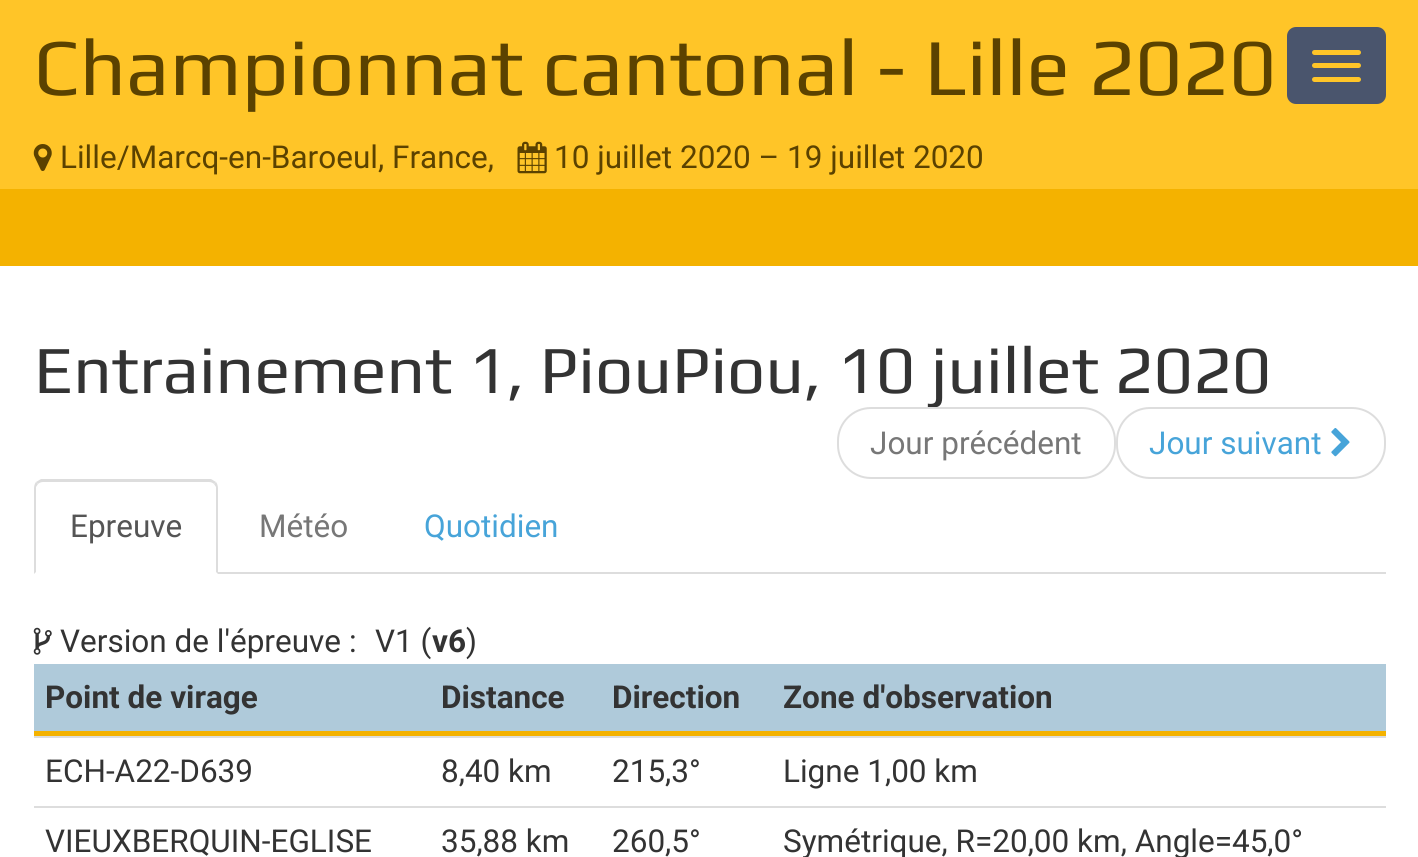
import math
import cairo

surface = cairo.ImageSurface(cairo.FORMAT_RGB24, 1418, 857)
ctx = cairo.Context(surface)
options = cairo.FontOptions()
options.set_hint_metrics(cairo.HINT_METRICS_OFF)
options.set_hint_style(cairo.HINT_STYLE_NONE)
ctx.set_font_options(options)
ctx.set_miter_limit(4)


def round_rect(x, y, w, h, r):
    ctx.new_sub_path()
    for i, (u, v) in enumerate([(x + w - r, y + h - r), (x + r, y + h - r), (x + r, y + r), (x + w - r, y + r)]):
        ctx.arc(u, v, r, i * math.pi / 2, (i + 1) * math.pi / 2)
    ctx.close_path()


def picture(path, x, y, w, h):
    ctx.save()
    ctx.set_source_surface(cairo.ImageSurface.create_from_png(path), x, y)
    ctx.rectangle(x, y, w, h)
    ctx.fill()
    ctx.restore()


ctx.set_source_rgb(1, 1, 1)
ctx.paint()
ctx.set_source_rgb(1, 0.773, 0.157)
ctx.rectangle(0, 0, 1418, 189)
ctx.fill()
ctx.select_font_face("Play")
ctx.set_font_size(81)
ctx.set_source_rgb(0.357, 0.259, 0)
ctx.move_to(34, 95)
ctx.show_text("Championnat cantonal - Lille 2020")
ctx.set_source_rgb(0.29, 0.333, 0.427)
round_rect(1288, 28, 97, 75, 8)
ctx.fill_preserve()
ctx.stroke()
ctx.set_source_rgb(1, 0.773, 0.157)
round_rect(1312, 50, 49, 5, 2.5)
ctx.fill()
round_rect(1312, 63, 49, 5, 2.5)
ctx.fill()
round_rect(1312, 77, 49, 5, 2.5)
ctx.fill()
picture("img1.png", 33, 144, 19, 27)
ctx.select_font_face("Roboto")
ctx.set_font_size(31.5)
ctx.set_source_rgb(0.357, 0.259, 0)
ctx.move_to(60, 168)
ctx.show_text("Lille/Marcq-en-Baroeul, France,")
picture("img2.png", 517, 141, 30, 33)
ctx.move_to(554, 168)
ctx.show_text("10 juillet 2020 – 19 juillet 2020")
ctx.set_source_rgb(0.957, 0.698, 0)
ctx.rectangle(0, 189, 1418, 77)
ctx.fill()
ctx.select_font_face("Play")
ctx.set_font_size(67.5)
ctx.set_source_rgb(0.2, 0.2, 0.2)
ctx.move_to(34, 393)
ctx.show_text("Entrainement 1, PiouPiou, 10 juillet 2020")
ctx.set_source_rgb(1, 1, 1)
round_rect(838, 408, 277, 70, 33)
ctx.fill_preserve()
ctx.set_source_rgb(0.867, 0.867, 0.867)
ctx.stroke()
ctx.select_font_face("Roboto")
ctx.set_font_size(31.5)
ctx.set_source_rgb(0.467, 0.467, 0.467)
ctx.move_to(870, 454)
ctx.show_text("Jour précédent")
round_rect(1117, 408, 268, 70, 33)
ctx.set_source_rgb(0.867, 0.867, 0.867)
ctx.stroke()
ctx.set_source_rgb(0.278, 0.643, 0.851)
ctx.move_to(1149, 454)
ctx.show_text("Jour suivant")
picture("img3.png", 1331, 428, 19, 29)
ctx.set_source_rgb(0.867, 0.867, 0.867)
ctx.rectangle(218, 572, 1168, 2)
ctx.fill()
ctx.new_path()
ctx.move_to(43, 482)
ctx.curve_to(41, 482, 39, 483, 38, 484)
ctx.line_to(36, 482)
ctx.curve_to(38, 481, 39, 480, 41, 479)
ctx.line_to(211, 479)
ctx.curve_to(213, 480, 214, 481, 216, 482)
ctx.line_to(214, 484)
ctx.curve_to(213, 483, 211, 482, 209, 482)
ctx.close_path()
ctx.fill()
ctx.new_path()
ctx.move_to(216, 482)
ctx.curve_to(217, 483, 218, 486, 218, 488)
ctx.line_to(218, 574)
ctx.line_to(216, 572)
ctx.line_to(216, 487)
ctx.line_to(214, 484)
ctx.close_path()
ctx.fill()
ctx.new_path()
ctx.move_to(34, 574)
ctx.line_to(34, 488)
ctx.curve_to(34, 486, 35, 483, 36, 482)
ctx.line_to(38, 484)
ctx.line_to(36, 487)
ctx.line_to(36, 572)
ctx.close_path()
ctx.fill()
ctx.set_source_rgb(0.333, 0.333, 0.333)
ctx.move_to(70, 537)
ctx.show_text("Epreuve")
ctx.set_source_rgb(0.467, 0.467, 0.467)
ctx.move_to(259, 537)
ctx.show_text("Météo")
ctx.set_source_rgb(0.278, 0.643, 0.851)
ctx.move_to(424, 537)
ctx.show_text("Quotidien")
picture("img4.png", 33, 627, 19, 28)
ctx.set_source_rgb(0.2, 0.2, 0.2)
ctx.move_to(60, 652)
ctx.show_text("Version de l'épreuve :")
ctx.move_to(375, 652)
ctx.show_text("V1 (")
ctx.select_font_face("Roboto", cairo.FONT_SLANT_NORMAL, cairo.FONT_WEIGHT_BOLD)
ctx.move_to(432, 652)
ctx.show_text("v6")
ctx.select_font_face("Roboto")
ctx.move_to(466, 652)
ctx.show_text(")")
ctx.set_source_rgb(0.686, 0.792, 0.855)
ctx.rectangle(34, 664, 1352, 67)
ctx.fill()
ctx.set_source_rgb(0.957, 0.698, 0)
ctx.rectangle(34, 731, 1352, 5)
ctx.fill()
ctx.select_font_face("Roboto", cairo.FONT_SLANT_NORMAL, cairo.FONT_WEIGHT_BOLD)
ctx.set_source_rgb(0.2, 0.2, 0.2)
ctx.move_to(45, 708)
ctx.show_text("Point de virage")
ctx.move_to(441, 708)
ctx.show_text("Distance")
ctx.move_to(612, 708)
ctx.show_text("Direction")
ctx.move_to(783, 708)
ctx.show_text("Zone d'observation")
ctx.set_source_rgb(0.867, 0.867, 0.867)
ctx.rectangle(34, 736, 1352, 2)
ctx.fill()
ctx.select_font_face("Roboto")
ctx.set_source_rgb(0.2, 0.2, 0.2)
ctx.move_to(45, 782)
ctx.show_text("ECH-A22-D639")
ctx.move_to(441, 782)
ctx.show_text("8,40 km")
ctx.move_to(612, 782)
ctx.show_text("215,3°")
ctx.move_to(783, 782)
ctx.show_text("Ligne 1,00 km")
ctx.set_source_rgb(0.867, 0.867, 0.867)
ctx.rectangle(34, 806, 1352, 2)
ctx.fill()
ctx.set_source_rgb(0.2, 0.2, 0.2)
ctx.move_to(45, 852)
ctx.show_text("VIEUXBERQUIN-EGLISE")
ctx.move_to(441, 852)
ctx.show_text("35,88 km")
ctx.move_to(612, 852)
ctx.show_text("260,5°")
ctx.move_to(783, 852)
ctx.show_text("Symétrique, R=20,00 km, Angle=45,0°")
surface.write_to_png("page.png")
